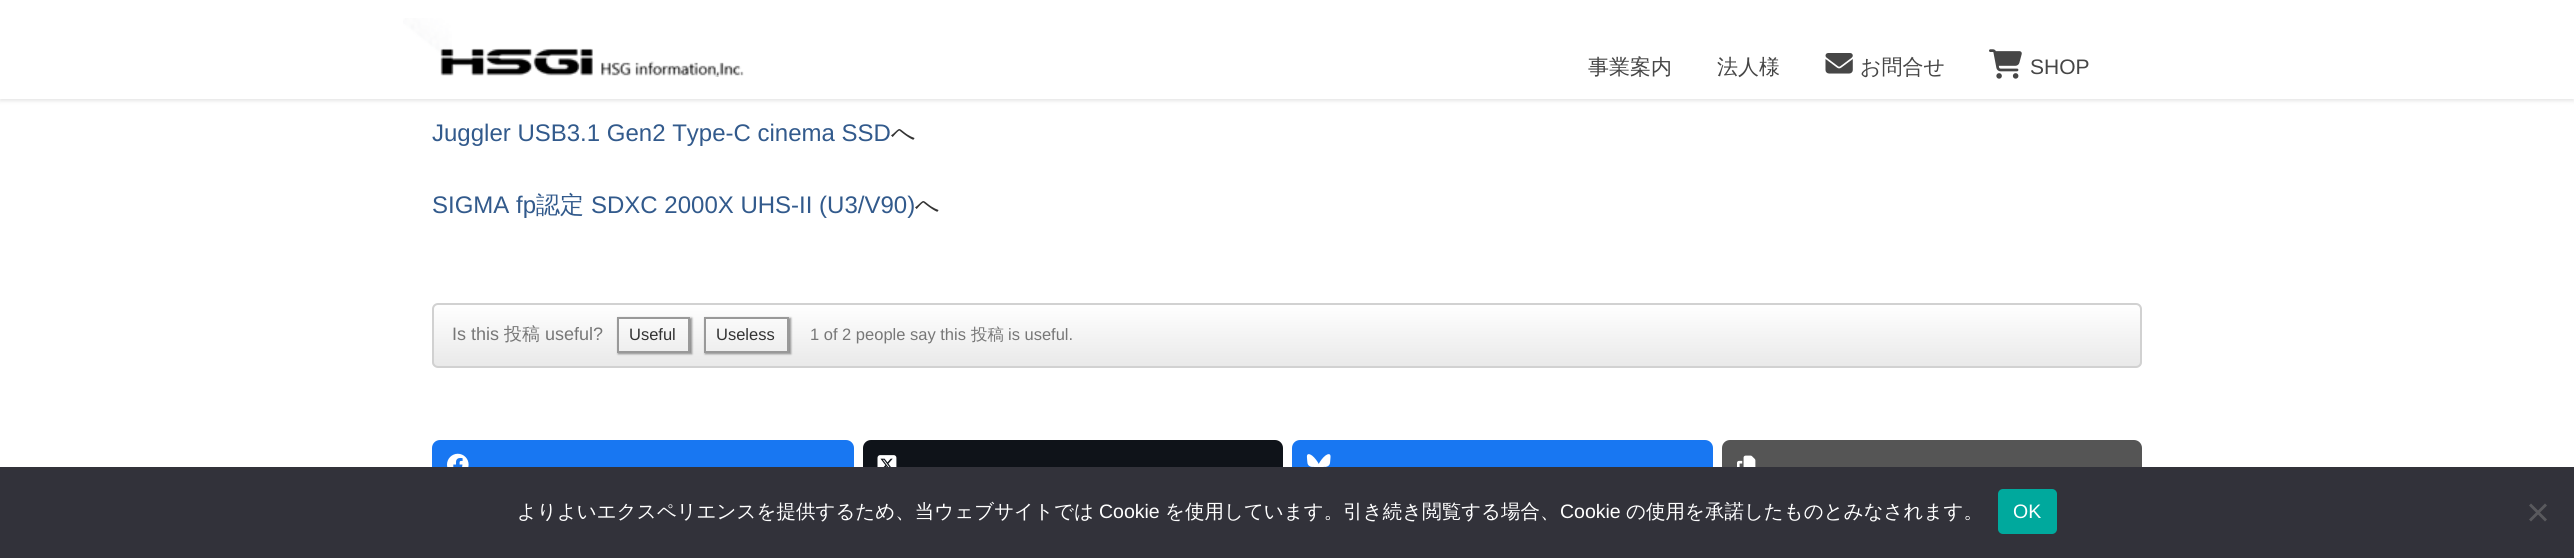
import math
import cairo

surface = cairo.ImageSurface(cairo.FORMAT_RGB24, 2574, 558)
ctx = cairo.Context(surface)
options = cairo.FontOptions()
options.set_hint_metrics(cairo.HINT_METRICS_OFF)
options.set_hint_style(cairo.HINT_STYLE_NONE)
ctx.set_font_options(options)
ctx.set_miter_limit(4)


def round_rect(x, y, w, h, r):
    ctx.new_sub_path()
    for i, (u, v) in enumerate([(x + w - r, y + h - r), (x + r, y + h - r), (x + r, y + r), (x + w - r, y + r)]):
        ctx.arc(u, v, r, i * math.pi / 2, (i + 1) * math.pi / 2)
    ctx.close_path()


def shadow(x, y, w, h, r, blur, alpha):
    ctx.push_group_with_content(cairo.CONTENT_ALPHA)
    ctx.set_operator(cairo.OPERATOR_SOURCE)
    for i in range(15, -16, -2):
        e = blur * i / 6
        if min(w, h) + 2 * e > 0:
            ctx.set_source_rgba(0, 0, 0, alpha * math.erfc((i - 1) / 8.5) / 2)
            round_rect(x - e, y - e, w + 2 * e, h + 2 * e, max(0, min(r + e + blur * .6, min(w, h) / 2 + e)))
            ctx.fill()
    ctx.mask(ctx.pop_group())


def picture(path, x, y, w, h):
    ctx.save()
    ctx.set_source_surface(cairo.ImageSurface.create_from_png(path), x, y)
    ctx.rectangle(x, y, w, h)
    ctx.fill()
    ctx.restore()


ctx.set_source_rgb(1, 1, 1)
ctx.paint()
ctx.set_source_rgb(0, 0, 0)
shadow(0, 2, 2574, 99, 0, 2, 0.1)
ctx.set_source_rgb(1, 1, 1)
ctx.rectangle(0, 0, 2574, 99)
ctx.fill()
picture("img1.png", 403, 18, 49, 40)
picture("img2.png", 440, 48, 304, 29)
ctx.select_font_face("WenQuanYi Zen Hei Medium")
ctx.set_font_size(21)
ctx.set_source_rgb(0.275, 0.275, 0.275)
ctx.move_to(1588, 74)
ctx.show_text("事業案内")
ctx.move_to(1717, 74)
ctx.show_text("法人様")
picture("img3.png", 1825, 53, 28, 21)
ctx.move_to(1860, 74)
ctx.show_text("お問合せ")
picture("img4.png", 1989, 49, 33, 30)
ctx.select_font_face("Liberation Sans")
ctx.move_to(2030, 74)
ctx.show_text("SHOP")
ctx.set_font_size(24)
ctx.set_source_rgb(0.196, 0.353, 0.549)
ctx.move_to(432, 141)
ctx.show_text("Juggler USB3.1 Gen2 Type-C cinema SSD")
ctx.select_font_face("WenQuanYi Zen Hei Medium")
ctx.set_source_rgb(0.2, 0.2, 0.2)
ctx.move_to(891, 141)
ctx.show_text("へ")
ctx.select_font_face("Liberation Sans")
ctx.set_source_rgb(0.196, 0.353, 0.549)
ctx.move_to(432, 213)
ctx.show_text("SIGMA fp")
ctx.select_font_face("WenQuanYi Zen Hei Medium")
ctx.move_to(536, 213)
ctx.show_text("認定")
ctx.select_font_face("Liberation Sans")
ctx.move_to(591, 213)
ctx.show_text("SDXC 2000X UHS-II (U3/V90)")
ctx.select_font_face("WenQuanYi Zen Hei Medium")
ctx.set_source_rgb(0.2, 0.2, 0.2)
ctx.move_to(915, 213)
ctx.show_text("へ")
ctx.save()
round_rect(432, 303, 1710, 65, 6)
ctx.clip()
gradient = cairo.LinearGradient(1287, 304, 1287, 366)
gradient.add_color_stop_rgba(0, 1, 1, 1, 1)
gradient.add_color_stop_rgba(1, 0.914, 0.914, 0.914, 1)
ctx.set_source(gradient)
ctx.rectangle(432, 305, 1710, 61)
ctx.fill()
ctx.restore()
round_rect(433, 304, 1708, 63, 5)
ctx.set_source_rgb(0.82, 0.82, 0.82)
ctx.stroke()
ctx.select_font_face("Liberation Sans")
ctx.set_font_size(18)
ctx.set_source_rgb(0.467, 0.467, 0.467)
ctx.move_to(452, 340)
ctx.show_text("Is this")
ctx.select_font_face("WenQuanYi Zen Hei Medium")
ctx.move_to(504, 340)
ctx.show_text("投稿")
ctx.select_font_face("Liberation Sans")
ctx.move_to(545, 340)
ctx.show_text("useful?")
ctx.save()
ctx.set_fill_rule(cairo.FILL_RULE_EVEN_ODD)
ctx.new_path()
ctx.move_to(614, 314)
ctx.line_to(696, 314)
ctx.line_to(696, 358)
ctx.line_to(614, 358)
ctx.close_path()
ctx.move_to(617, 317)
ctx.line_to(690, 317)
ctx.line_to(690, 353)
ctx.line_to(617, 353)
ctx.close_path()
ctx.clip()
ctx.set_source_rgb(0, 0, 0)
shadow(618, 318, 74, 36, 0, 1, 0.4)
ctx.restore()
ctx.rectangle(618, 318, 71, 34)
ctx.set_source_rgb(0.6, 0.6, 0.6)
ctx.stroke()
ctx.set_font_size(16.5)
ctx.set_source_rgb(0.2, 0.2, 0.2)
ctx.move_to(629, 340)
ctx.show_text("Useful")
ctx.save()
ctx.set_fill_rule(cairo.FILL_RULE_EVEN_ODD)
ctx.new_path()
ctx.move_to(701, 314)
ctx.line_to(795, 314)
ctx.line_to(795, 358)
ctx.line_to(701, 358)
ctx.close_path()
ctx.move_to(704, 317)
ctx.line_to(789, 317)
ctx.line_to(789, 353)
ctx.line_to(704, 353)
ctx.close_path()
ctx.clip()
ctx.set_source_rgb(0, 0, 0)
shadow(705, 318, 86, 36, 0, 1, 0.4)
ctx.restore()
ctx.rectangle(705, 318, 83, 34)
ctx.set_source_rgb(0.6, 0.6, 0.6)
ctx.stroke()
ctx.set_source_rgb(0.2, 0.2, 0.2)
ctx.move_to(716, 340)
ctx.show_text("Useless")
ctx.set_source_rgb(0.467, 0.467, 0.467)
ctx.move_to(810, 340)
ctx.show_text("1 of 2 people say this")
ctx.select_font_face("WenQuanYi Zen Hei Medium")
ctx.move_to(971, 340)
ctx.show_text("投稿")
ctx.select_font_face("Liberation Sans")
ctx.move_to(1008, 340)
ctx.show_text("is useful.")
ctx.set_source_rgb(0.094, 0.467, 0.949)
round_rect(432, 440, 422, 51, 8)
ctx.fill()
picture("img5.png", 447, 453, 22, 14)
ctx.set_source_rgb(0.059, 0.078, 0.098)
round_rect(863, 440, 420, 51, 8)
ctx.fill()
picture("img6.png", 877, 455, 20, 12)
ctx.set_source_rgb(0.094, 0.467, 0.949)
round_rect(1292, 440, 421, 51, 8)
ctx.fill()
picture("img7.png", 1306, 454, 25, 13)
ctx.set_source_rgb(0.333, 0.333, 0.333)
round_rect(1722, 440, 420, 51, 8)
ctx.fill()
picture("img8.png", 1737, 455, 19, 12)
ctx.set_source_rgb(0.196, 0.196, 0.227)
ctx.rectangle(0, 467, 2574, 91)
ctx.fill()
ctx.select_font_face("WenQuanYi Zen Hei Medium")
ctx.set_font_size(19.5)
ctx.set_source_rgb(1, 1, 1)
ctx.move_to(517, 518)
ctx.show_text("よりよいエクスペリエンスを提供するため、当ウェブサイトでは")
ctx.select_font_face("Liberation Sans")
ctx.move_to(1099, 518)
ctx.show_text("Cookie")
ctx.select_font_face("WenQuanYi Zen Hei Medium")
ctx.move_to(1165, 518)
ctx.show_text("を使用しています。引き続き閲覧する場合、")
ctx.select_font_face("Liberation Sans")
ctx.move_to(1560, 518)
ctx.show_text("Cookie")
ctx.select_font_face("WenQuanYi Zen Hei Medium")
ctx.move_to(1626, 518)
ctx.show_text("の使用を承諾したものとみなされます。")
ctx.set_source_rgb(0, 0.663, 0.616)
round_rect(1998, 489, 59, 45, 5)
ctx.fill()
ctx.select_font_face("Liberation Sans")
ctx.set_source_rgb(1, 1, 1)
ctx.move_to(2013, 518)
ctx.show_text("OK")
ctx.set_source_rgb(0.349, 0.349, 0.365)
ctx.new_path()
ctx.move_to(2545, 503.5)
ctx.line_to(2547, 505.5)
ctx.line_to(2531, 521.5)
ctx.line_to(2529, 519.5)
ctx.close_path()
ctx.fill()
ctx.new_path()
ctx.move_to(2529, 505.5)
ctx.line_to(2531, 503.5)
ctx.line_to(2547, 519.5)
ctx.line_to(2545, 521.5)
ctx.close_path()
ctx.fill()
surface.write_to_png("page.png")
